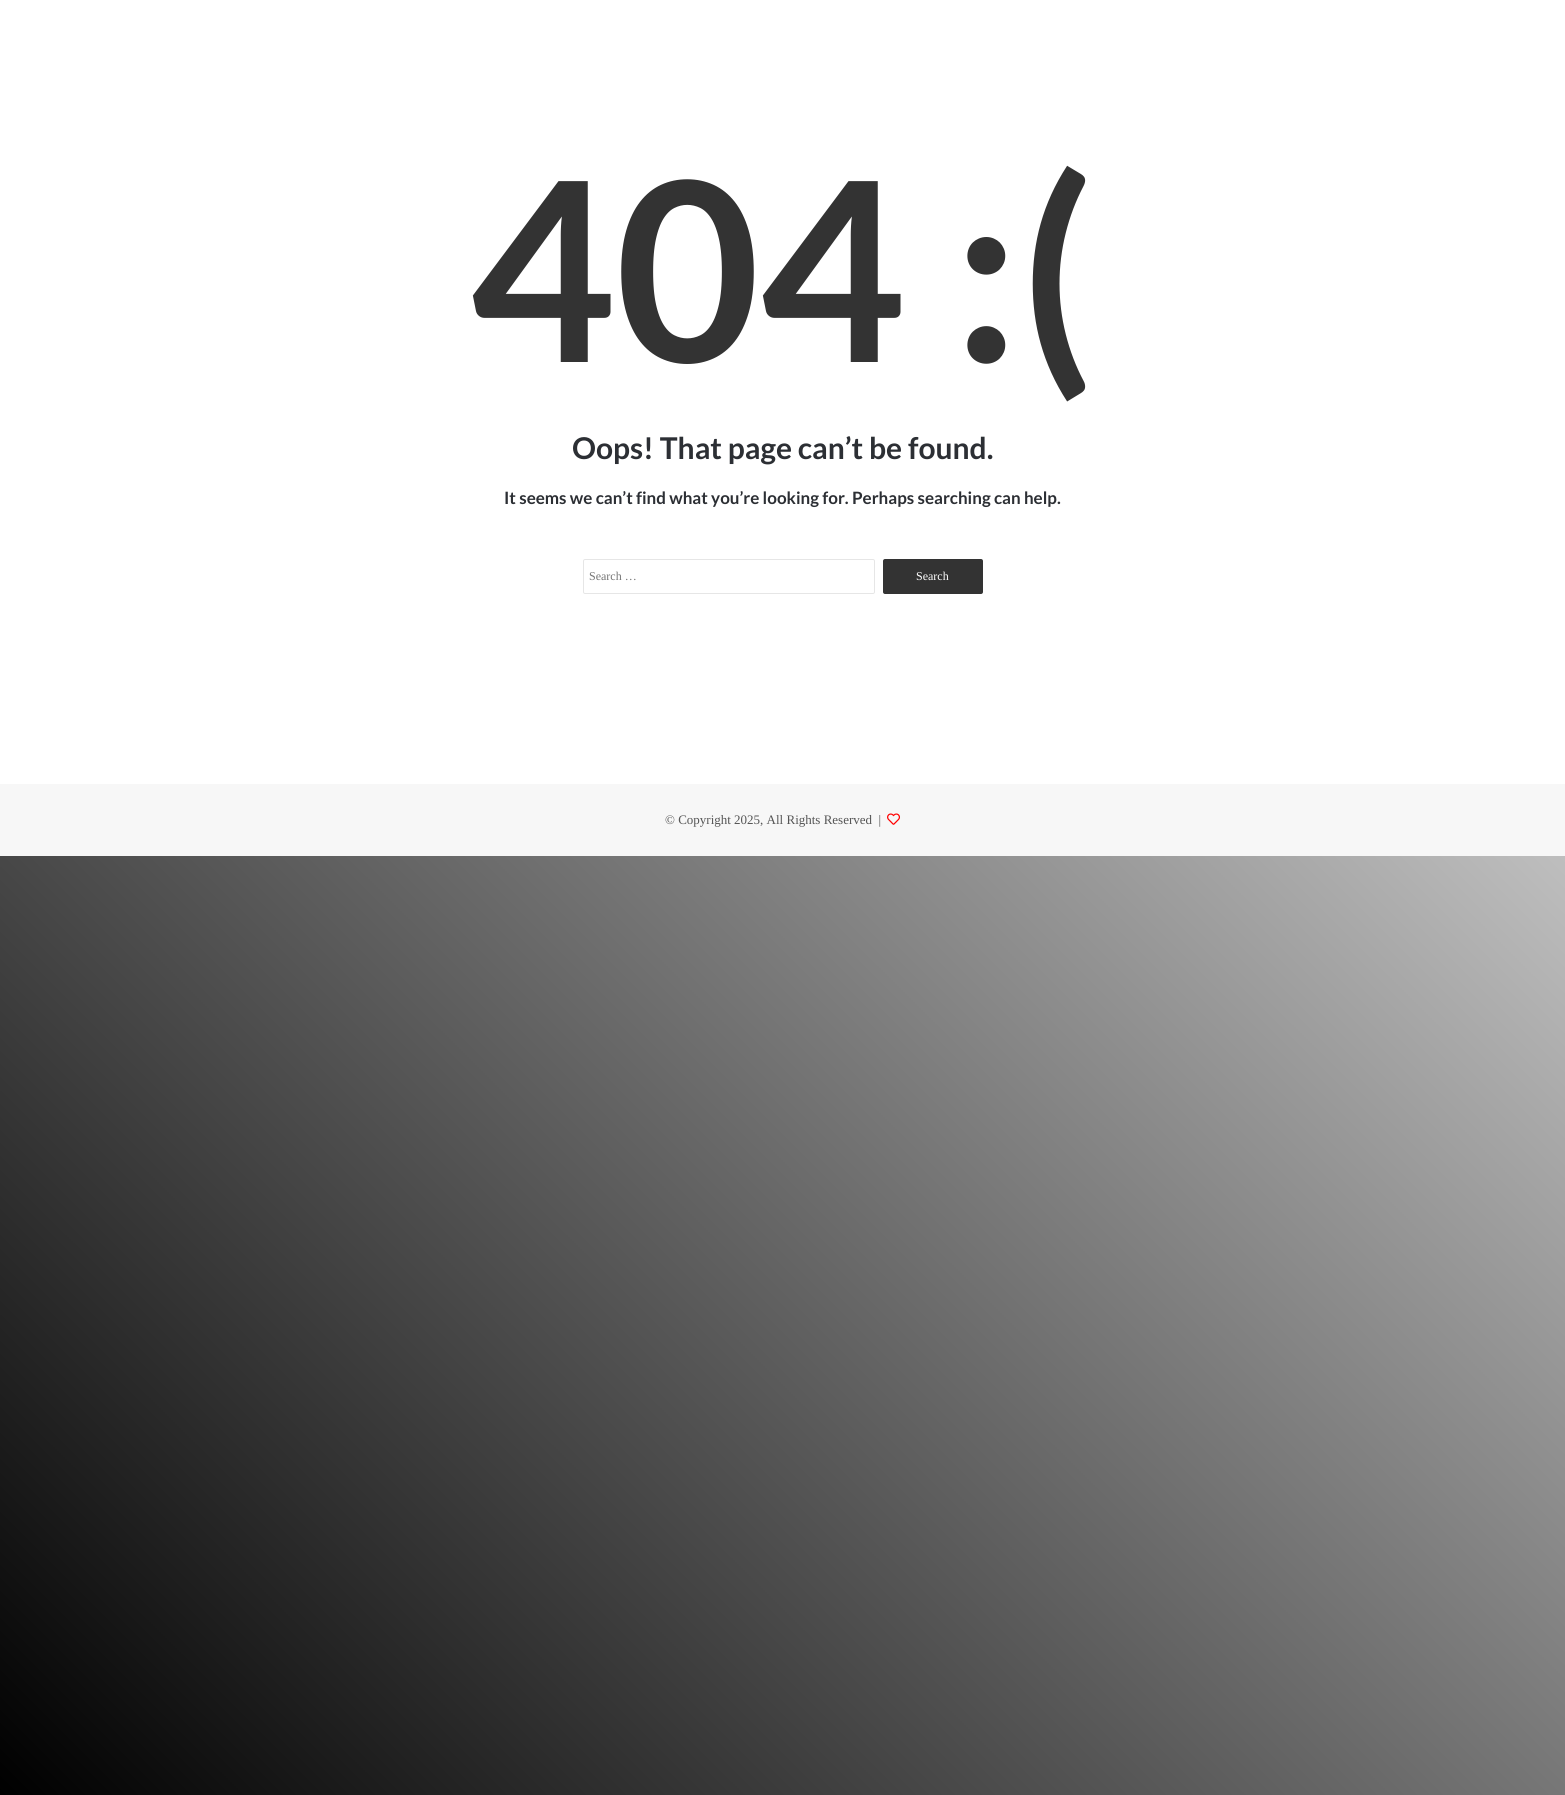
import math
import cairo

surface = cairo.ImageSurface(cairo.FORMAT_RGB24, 1565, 1795)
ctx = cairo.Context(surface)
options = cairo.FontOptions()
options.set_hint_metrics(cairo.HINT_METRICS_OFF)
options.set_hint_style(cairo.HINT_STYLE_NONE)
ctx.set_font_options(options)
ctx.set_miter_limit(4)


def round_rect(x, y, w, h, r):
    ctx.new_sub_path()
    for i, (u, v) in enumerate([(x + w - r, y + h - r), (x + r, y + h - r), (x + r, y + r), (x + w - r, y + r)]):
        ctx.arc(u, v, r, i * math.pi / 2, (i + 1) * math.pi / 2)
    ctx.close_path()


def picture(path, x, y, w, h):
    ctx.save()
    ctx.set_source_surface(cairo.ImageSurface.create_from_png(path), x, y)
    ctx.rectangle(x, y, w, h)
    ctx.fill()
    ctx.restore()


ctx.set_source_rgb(1, 1, 1)
ctx.paint()
gradient = cairo.LinearGradient(-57, 1738, 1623, 57)
gradient.add_color_stop_rgba(0, 0, 0, 0, 1)
gradient.add_color_stop_rgba(1, 1, 1, 1, 1)
ctx.set_source(gradient)
ctx.rectangle(0, 856, 1565, 939)
ctx.fill()
ctx.select_font_face("Lato", cairo.FONT_SLANT_NORMAL, cairo.FONT_WEIGHT_BOLD)
ctx.set_font_size(250)
ctx.set_source_rgb(0.2, 0.2, 0.2)
ctx.move_to(470, 362)
ctx.show_text("404 :(")
ctx.set_font_size(30)
ctx.set_source_rgb(0.173, 0.184, 0.204)
ctx.move_to(572, 459)
ctx.show_text("Oops! That page can’t be found.")
ctx.set_font_size(17)
ctx.move_to(504, 504)
ctx.show_text("It seems we can’t find what you’re looking for. Perhaps searching can help.")
round_rect(583.5, 559.5, 291, 34, 1.5)
ctx.set_source_rgb(0.902, 0.902, 0.902)
ctx.set_line_width(1)
ctx.stroke()
ctx.select_font_face("Liberation Serif")
ctx.set_font_size(12)
ctx.set_source_rgb(0.459, 0.459, 0.459)
ctx.move_to(589, 580)
ctx.show_text("Search …")
ctx.set_source_rgb(0.2, 0.2, 0.2)
round_rect(883, 559, 100, 35, 2)
ctx.fill()
ctx.set_source_rgb(1, 1, 1)
ctx.move_to(916, 580)
ctx.show_text("Search")
ctx.set_source_rgb(0.965, 0.965, 0.965)
ctx.rectangle(0, 784, 1565, 72)
ctx.fill()
ctx.set_font_size(13)
ctx.set_source_rgb(0.333, 0.333, 0.333)
ctx.move_to(665, 824)
ctx.show_text("© Copyright 2025, All Rights Reserved  |")
picture("img1.png", 887, 813, 13, 12)
surface.write_to_png("page.png")
